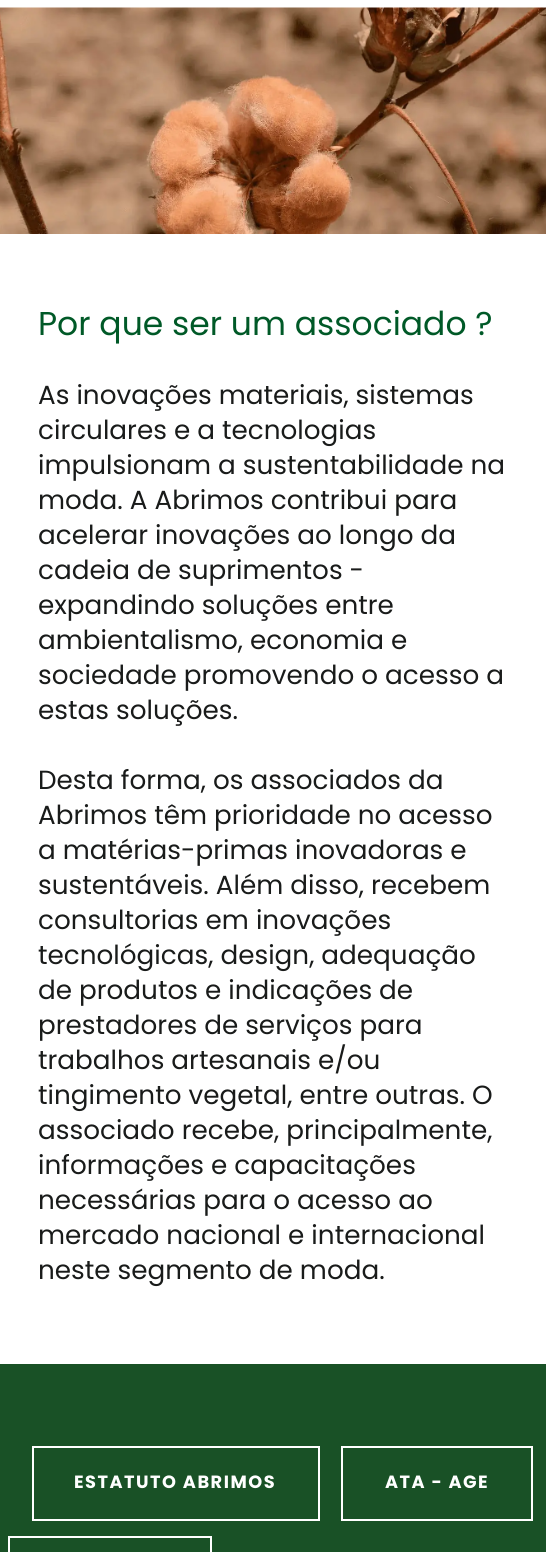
import math
import cairo

surface = cairo.ImageSurface(cairo.FORMAT_RGB24, 546, 1552)
ctx = cairo.Context(surface)
options = cairo.FontOptions()
options.set_hint_metrics(cairo.HINT_METRICS_OFF)
options.set_hint_style(cairo.HINT_STYLE_NONE)
ctx.set_font_options(options)
ctx.set_miter_limit(4)


def spaced_text(x, y, s, letter, word):
    ctx.move_to(x, y)
    for ch in s:
        ctx.show_text(ch)
        ctx.rel_move_to(letter + word * (ch == ' '), 0)


def picture(path, x, y, w, h):
    ctx.save()
    ctx.set_source_surface(cairo.ImageSurface.create_from_png(path), x, y)
    ctx.rectangle(x, y, w, h)
    ctx.fill()
    ctx.restore()


ctx.set_source_rgb(0.098, 0.318, 0.149)
ctx.paint()
ctx.set_source_rgb(1, 1, 1)
ctx.rectangle(0, 0, 546, 8)
ctx.fill()
picture("img1.png", 0, 7, 546, 227)
ctx.rectangle(0, 234, 546, 1130)
ctx.fill()
ctx.select_font_face("Poppins")
ctx.set_font_size(33)
ctx.set_source_rgb(0, 0.349, 0.153)
ctx.move_to(38, 335)
ctx.show_text("Por que ser um associado ?")
ctx.set_font_size(26.25)
ctx.set_source_rgb(0.098, 0.106, 0.102)
ctx.move_to(38, 404)
ctx.show_text("As inovações materiais, sistemas")
ctx.move_to(38, 439)
ctx.show_text("circulares e a tecnologias")
ctx.move_to(38, 474)
ctx.show_text("impulsionam a sustentabilidade na")
ctx.move_to(38, 509)
ctx.show_text("moda. A Abrimos contribui para")
ctx.move_to(38, 544)
ctx.show_text("acelerar inovações ao longo da")
ctx.move_to(38, 579)
ctx.show_text("cadeia de suprimentos -")
ctx.move_to(38, 614)
ctx.show_text("expandindo soluções entre")
ctx.move_to(38, 649)
ctx.show_text("ambientalismo, economia e")
ctx.move_to(38, 684)
ctx.show_text("sociedade promovendo o acesso a")
ctx.move_to(38, 719)
ctx.show_text("estas soluções.")
ctx.move_to(38, 789)
ctx.show_text("Desta forma, os associados da")
ctx.move_to(38, 824)
ctx.show_text("Abrimos têm prioridade no acesso")
ctx.move_to(38, 859)
ctx.show_text("a matérias-primas inovadoras e")
ctx.move_to(38, 894)
ctx.show_text("sustentáveis. Além disso, recebem")
ctx.move_to(38, 929)
ctx.show_text("consultorias em inovações")
ctx.move_to(38, 964)
ctx.show_text("tecnológicas, design, adequação")
ctx.move_to(38, 999)
ctx.show_text("de produtos e indicações de")
ctx.move_to(38, 1034)
ctx.show_text("prestadores de serviços para")
ctx.move_to(38, 1069)
ctx.show_text("trabalhos artesanais e/ou")
ctx.move_to(38, 1104)
ctx.show_text("tingimento vegetal, entre outras. O")
ctx.move_to(38, 1139)
ctx.show_text("associado recebe, principalmente,")
ctx.move_to(38, 1174)
ctx.show_text("informações e capacitações")
ctx.move_to(38, 1209)
ctx.show_text("necessárias para o acesso ao")
ctx.move_to(38, 1244)
ctx.show_text("mercado nacional e internacional")
ctx.move_to(38, 1279)
ctx.show_text("neste segmento de moda.")
ctx.rectangle(33, 1447, 286, 73)
ctx.set_source_rgb(1, 1, 1)
ctx.stroke()
ctx.select_font_face("Poppins", cairo.FONT_SLANT_NORMAL, cairo.FONT_WEIGHT_BOLD)
ctx.set_font_size(17.75)
spaced_text(74, 1488, "ESTATUTO ABRIMOS", 1.5, 0)
ctx.rectangle(342, 1447, 190, 73)
ctx.stroke()
spaced_text(385, 1488, "ATA - AGE", 1.5, 0)
ctx.rectangle(9, 1537, 202, 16)
ctx.stroke()
surface.write_to_png("page.png")
